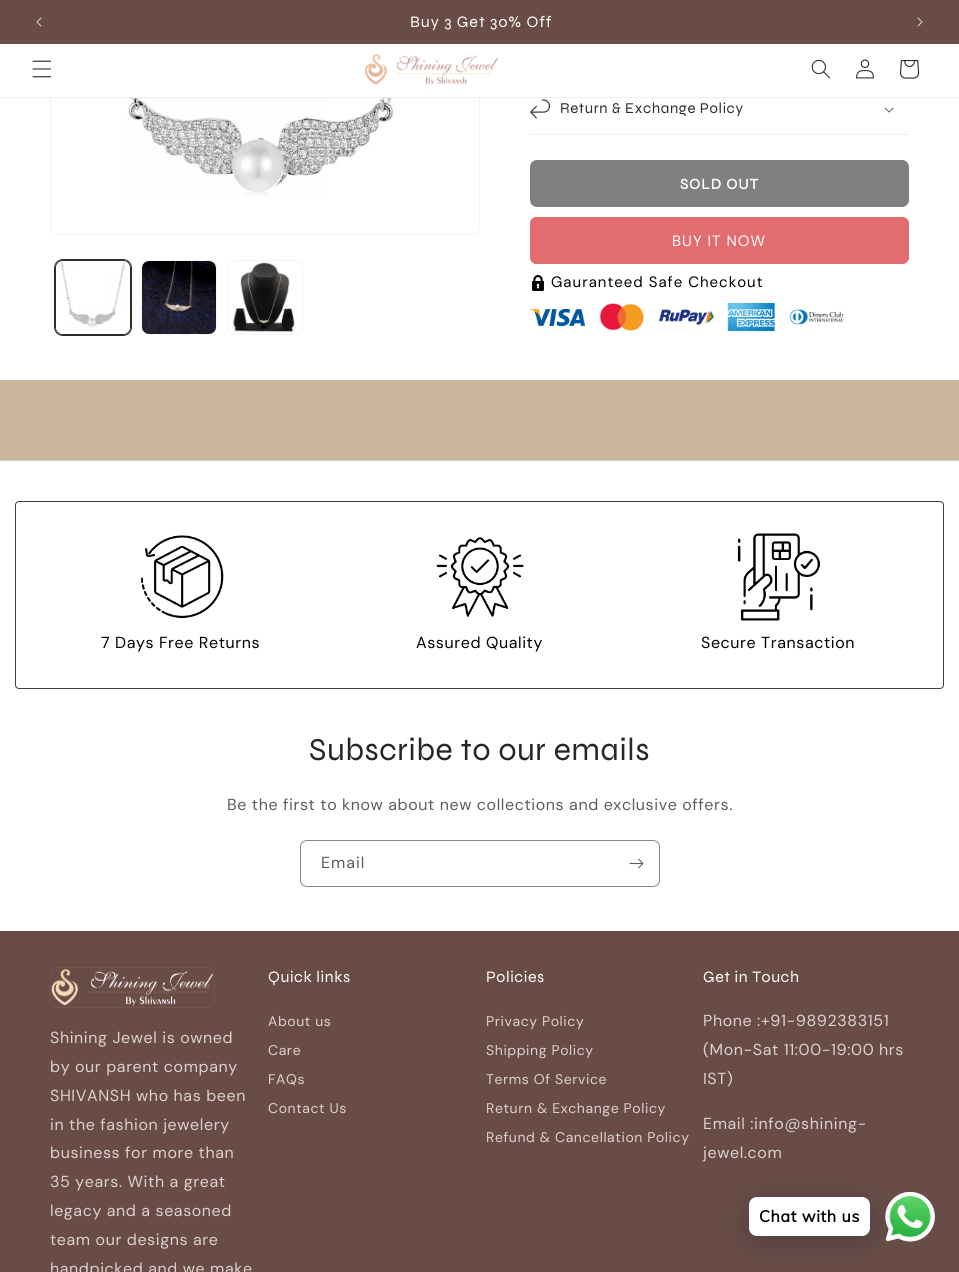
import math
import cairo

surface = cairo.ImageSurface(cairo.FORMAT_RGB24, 959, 1272)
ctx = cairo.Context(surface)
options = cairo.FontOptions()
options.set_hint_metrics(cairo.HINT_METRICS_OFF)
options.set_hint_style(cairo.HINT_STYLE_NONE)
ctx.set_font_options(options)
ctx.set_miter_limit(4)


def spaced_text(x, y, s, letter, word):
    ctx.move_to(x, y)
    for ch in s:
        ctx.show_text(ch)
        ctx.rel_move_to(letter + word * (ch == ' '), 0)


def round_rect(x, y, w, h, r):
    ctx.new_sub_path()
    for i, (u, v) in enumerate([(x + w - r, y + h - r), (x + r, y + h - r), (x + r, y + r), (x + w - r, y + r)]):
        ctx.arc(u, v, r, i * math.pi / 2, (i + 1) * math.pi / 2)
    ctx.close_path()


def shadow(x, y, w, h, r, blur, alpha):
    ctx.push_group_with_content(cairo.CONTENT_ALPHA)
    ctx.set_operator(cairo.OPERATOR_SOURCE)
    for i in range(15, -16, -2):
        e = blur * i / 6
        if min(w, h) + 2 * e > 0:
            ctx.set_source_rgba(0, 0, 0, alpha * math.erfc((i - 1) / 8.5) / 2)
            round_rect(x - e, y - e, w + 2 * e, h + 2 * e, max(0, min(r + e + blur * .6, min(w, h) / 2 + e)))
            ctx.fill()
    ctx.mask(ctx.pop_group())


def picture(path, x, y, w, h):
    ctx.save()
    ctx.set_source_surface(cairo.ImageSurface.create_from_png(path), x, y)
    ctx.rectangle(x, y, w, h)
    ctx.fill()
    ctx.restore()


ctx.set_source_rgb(1, 1, 1)
ctx.paint()
round_rect(50.5, -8.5, 429, 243, 7.5)
ctx.set_source_rgb(0.957, 0.957, 0.961)
ctx.set_line_width(1)
ctx.stroke()
ctx.set_source_rgb(0.412, 0.298, 0.275)
ctx.rectangle(0, 0, 959, 44)
ctx.fill()
picture("img1.png", 36, 17, 6, 10)
ctx.select_font_face("Syne")
ctx.set_font_size(16)
ctx.set_source_rgb(1, 1, 1)
spaced_text(410, 27, "Buy 3 Get 30% Off", 1, 0)
picture("img2.png", 917, 17, 6, 10)
ctx.rectangle(50, 44, 430, 53)
ctx.fill()
ctx.set_source_rgb(0.933, 0.933, 0.933)
ctx.rectangle(0, 97, 959, 1)
ctx.fill()
picture("img3.png", 32, 60, 20, 18)
picture("img4.png", 364, 53, 135, 33)
picture("img5.png", 811, 59, 19, 20)
picture("img6.png", 856, 59, 18, 20)
picture("img7.png", 900, 60, 20, 19)
picture("img8.png", 113, 98, 299, 99)
round_rect(54.5, 259.5, 77, 76, 8.5)
ctx.set_source_rgb(0.169, 0.173, 0.176)
ctx.stroke()
round_rect(55.5, 260.5, 75, 74, 7.5)
ctx.stroke()
picture("img9.png", 56, 261, 74, 73)
round_rect(141.5, 260.5, 75, 74, 7.5)
ctx.set_source_rgb(0.957, 0.957, 0.961)
ctx.stroke()
picture("img10.png", 142, 261, 74, 73)
round_rect(227.5, 260.5, 75, 74, 7.5)
ctx.stroke()
picture("img11.png", 233, 262, 62, 71)
ctx.set_source_rgb(0.933, 0.933, 0.933)
ctx.rectangle(530, 134, 379, 1)
ctx.fill()
picture("img12.png", 530, 99, 20, 20)
ctx.set_font_size(15)
ctx.set_source_rgb(0.169, 0.173, 0.176)
spaced_text(560, 113, "Return & Exchange Policy", 0.6, 0)
picture("img13.png", 884, 107, 10, 6)
ctx.set_source_rgb(0.502, 0.502, 0.502)
round_rect(530, 160, 379, 47, 7)
ctx.fill()
ctx.select_font_face("Syne", cairo.FONT_SLANT_NORMAL, cairo.FONT_WEIGHT_BOLD)
ctx.set_source_rgb(1, 1, 1)
spaced_text(680, 189, "SOLD OUT", 1, 0)
ctx.set_source_rgb(0.886, 0.424, 0.431)
round_rect(530, 217, 379, 47, 7)
ctx.fill()
round_rect(530.5, 217.5, 378, 46, 6.5)
ctx.stroke()
ctx.select_font_face("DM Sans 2")
ctx.set_source_rgb(1, 1, 1)
spaced_text(672, 246, "BUY IT NOW", 1, 0)
picture("img14.png", 532, 275, 12, 16)
ctx.set_source_rgb(0, 0, 0)
spaced_text(551, 287, "Gauranteed Safe Checkout", 1, 0)
picture("img15.png", 530, 308, 55, 19)
picture("img16.png", 600, 303, 44, 28)
picture("img17.png", 659, 309, 55, 16)
picture("img18.png", 727, 303, 49, 28)
picture("img19.png", 789, 309, 55, 16)
ctx.set_source_rgb(0.788, 0.714, 0.604)
ctx.rectangle(0, 380, 959, 80)
ctx.fill()
ctx.set_source_rgb(0.8, 0.8, 0.8)
ctx.rectangle(0, 460, 959, 1)
ctx.fill()
round_rect(15.5, 501.5, 928, 187, 3.5)
ctx.set_source_rgb(0.251, 0.251, 0.251)
ctx.stroke()
picture("img20.png", 141, 535, 83, 84)
ctx.select_font_face("DM Sans")
ctx.set_font_size(16)
ctx.set_source_rgb(0, 0, 0)
spaced_text(101, 648, "7 Days Free Returns", 0.6, 0)
picture("img21.png", 436, 537, 88, 80)
spaced_text(416, 648, "Assured Quality", 0.6, 0)
picture("img22.png", 737, 533, 84, 88)
spaced_text(701, 648, "Secure Transaction", 0.6, 0)
ctx.select_font_face("Syne")
ctx.set_font_size(32)
ctx.set_source_rgb(0.149, 0.149, 0.149)
spaced_text(309, 760, "Subscribe to our emails", 0.6, 0)
ctx.select_font_face("DM Sans")
ctx.set_font_size(16)
ctx.set_source_rgb(0.361, 0.361, 0.361)
spaced_text(227, 810, "Be the first to know about new collections and exclusive offers.", 0.6, 0)
round_rect(300.5, 840.5, 359, 46, 6.5)
ctx.set_source_rgb(0.533, 0.533, 0.533)
ctx.stroke()
ctx.set_source_rgb(0.361, 0.361, 0.361)
spaced_text(321, 868, "Email", 1, 0)
picture("img23.png", 629, 858, 15, 11)
ctx.set_source_rgb(0.412, 0.298, 0.275)
ctx.rectangle(0, 931, 959, 341)
ctx.fill()
round_rect(50.5, 967.5, 164, 40, 7.5)
ctx.set_source_rgb(0.443, 0.333, 0.31)
ctx.stroke()
picture("img24.png", 51, 969, 163, 37)
ctx.set_source_rgb(0.855, 0.824, 0.82)
spaced_text(50, 1043, "Shining Jewel is owned", 0.6, 0)
spaced_text(50, 1072, "by our parent company", 0.6, 0)
spaced_text(50, 1101, "SHIVANSH who has been", 0.6, 0)
spaced_text(50, 1130, "in the fashion jewelery", 0.6, 0)
spaced_text(50, 1158, "business for more than", 0.6, 0)
spaced_text(50, 1187, "35 years. With a great", 0.6, 0)
spaced_text(50, 1216, "legacy and a seasoned", 0.6, 0)
spaced_text(50, 1245, "team our designs are", 0.6, 0)
spaced_text(50, 1274, "handpicked and we make", 0.6, 0)
ctx.select_font_face("Syne")
ctx.set_source_rgb(1, 1, 1)
spaced_text(268, 982, "Quick links", 0.6, 0)
ctx.select_font_face("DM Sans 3")
ctx.set_font_size(14)
ctx.set_source_rgb(0.855, 0.824, 0.82)
spaced_text(268, 1026, "About us", 0.6, 0)
spaced_text(268, 1055, "Care", 0.6, 0)
spaced_text(268, 1084, "FAQs", 0.6, 0)
spaced_text(268, 1113, "Contact Us", 0.6, 0)
ctx.select_font_face("Syne")
ctx.set_font_size(16)
ctx.set_source_rgb(1, 1, 1)
spaced_text(486, 982, "Policies", 0.6, 0)
ctx.select_font_face("DM Sans 3")
ctx.set_font_size(14)
ctx.set_source_rgb(0.855, 0.824, 0.82)
spaced_text(486, 1026, "Privacy Policy", 0.6, 0)
spaced_text(486, 1055, "Shipping Policy", 0.6, 0)
spaced_text(486, 1084, "Terms Of Service", 0.6, 0)
spaced_text(486, 1113, "Return & Exchange Policy", 0.6, 0)
spaced_text(486, 1142, "Refund & Cancellation Policy", 0.6, 0)
ctx.select_font_face("Syne")
ctx.set_font_size(16)
ctx.set_source_rgb(1, 1, 1)
spaced_text(703, 982, "Get in Touch", 0.6, 0)
ctx.select_font_face("DM Sans")
ctx.set_source_rgb(0.855, 0.824, 0.82)
spaced_text(703, 1026, "Phone :+91-9892383151", 0.6, 0)
spaced_text(703, 1055, "(Mon-Sat 11:00-19:00 hrs", 0.6, 0)
spaced_text(703, 1084, "IST)", 0.6, 0)
spaced_text(703, 1129, "Email :info@shining-", 0.6, 0)
spaced_text(703, 1158, "jewel.com", 0.6, 0)
picture("img25.png", 885, 1192, 50, 50)
ctx.set_source_rgb(0, 0.071, 0.18)
shadow(749, 1203, 121, 39, 8, 16, 0.24)
ctx.set_source_rgb(1, 1, 1)
round_rect(749, 1197, 121, 39, 8)
ctx.fill()
ctx.select_font_face("Muli", cairo.FONT_SLANT_NORMAL, cairo.FONT_WEIGHT_BOLD)
ctx.set_source_rgb(0, 0, 0)
spaced_text(759, 1222, "Chat with us", 0.6, 0)
surface.write_to_png("page.png")
